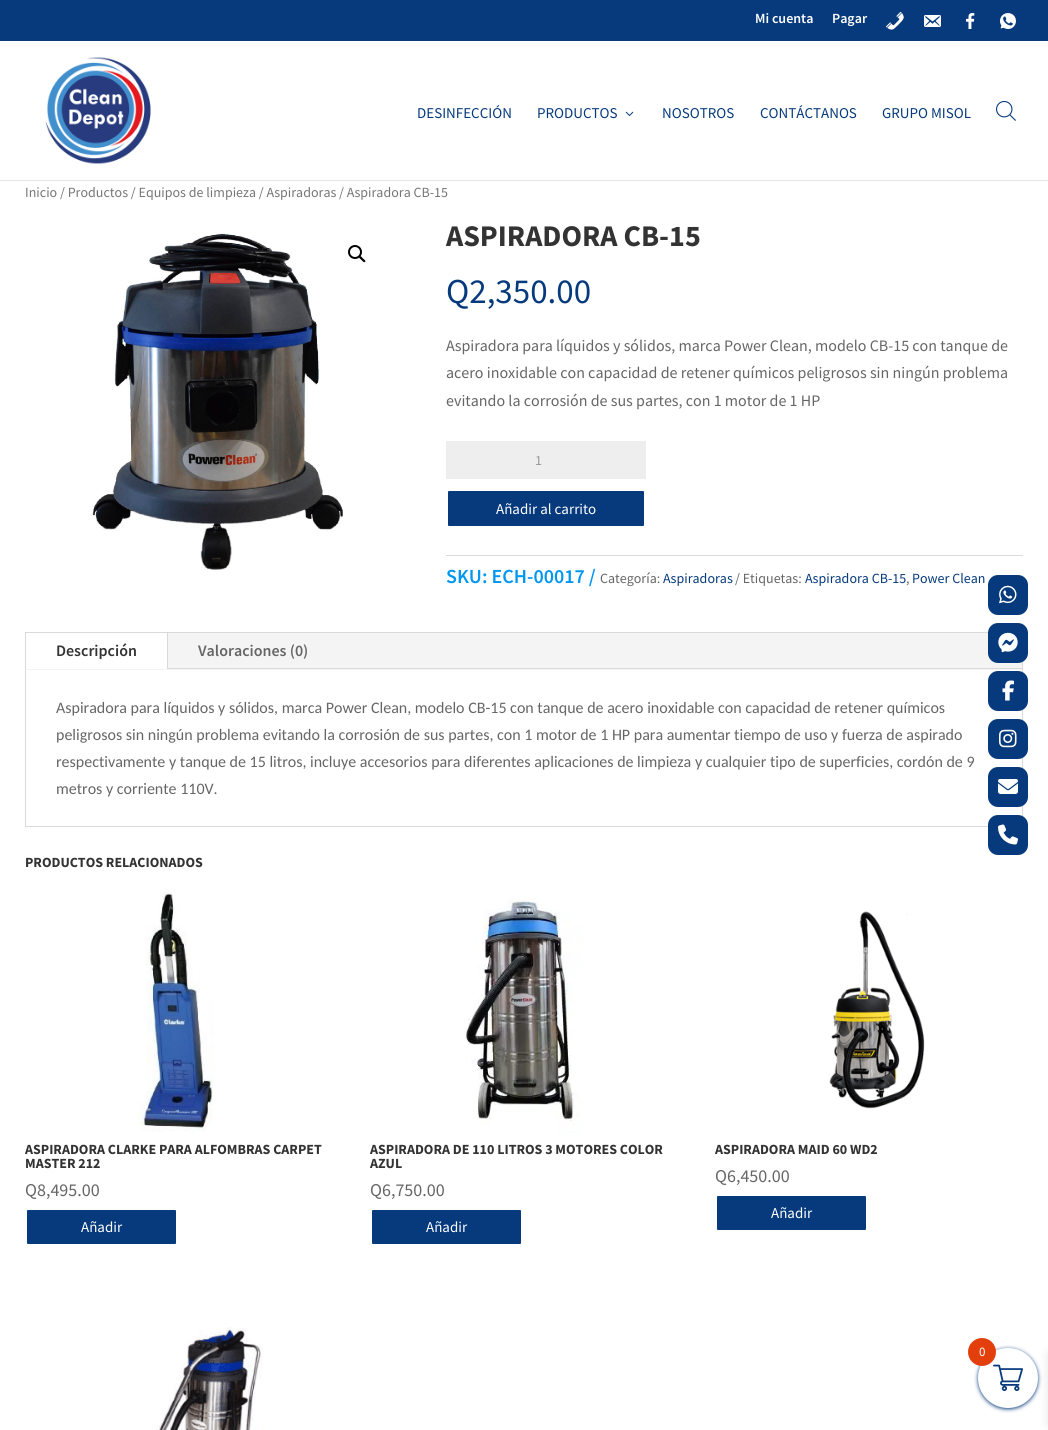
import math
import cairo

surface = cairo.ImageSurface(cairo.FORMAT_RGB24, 1048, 1430)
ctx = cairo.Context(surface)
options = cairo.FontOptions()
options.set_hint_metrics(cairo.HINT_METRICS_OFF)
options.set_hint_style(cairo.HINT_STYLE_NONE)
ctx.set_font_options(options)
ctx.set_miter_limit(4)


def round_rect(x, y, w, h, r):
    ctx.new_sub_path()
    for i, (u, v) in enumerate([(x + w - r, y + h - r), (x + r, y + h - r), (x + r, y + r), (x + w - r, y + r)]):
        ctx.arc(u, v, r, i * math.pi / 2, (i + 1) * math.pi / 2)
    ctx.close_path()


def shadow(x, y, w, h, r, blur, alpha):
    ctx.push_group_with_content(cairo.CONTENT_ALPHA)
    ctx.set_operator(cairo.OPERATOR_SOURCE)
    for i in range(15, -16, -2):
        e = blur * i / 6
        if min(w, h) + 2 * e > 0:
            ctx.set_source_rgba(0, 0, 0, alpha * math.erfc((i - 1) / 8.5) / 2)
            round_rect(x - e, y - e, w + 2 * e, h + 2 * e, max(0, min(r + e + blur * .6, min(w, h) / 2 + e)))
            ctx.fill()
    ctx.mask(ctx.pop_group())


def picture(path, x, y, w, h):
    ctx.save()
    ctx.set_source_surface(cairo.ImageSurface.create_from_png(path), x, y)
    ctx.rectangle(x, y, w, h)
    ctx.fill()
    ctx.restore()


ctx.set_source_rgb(1, 1, 1)
ctx.paint()
ctx.set_source_rgb(0.027, 0.227, 0.486)
ctx.rectangle(0, 0, 1048, 41)
ctx.fill()
ctx.select_font_face("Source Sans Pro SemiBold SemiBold")
ctx.set_font_size(14)
ctx.set_source_rgb(1, 1, 1)
ctx.move_to(755, 23)
ctx.show_text("Mi cuenta")
ctx.move_to(832, 23)
ctx.show_text("Pagar")
picture("img1.png", 886, 11, 18, 19)
picture("img2.png", 924, 15, 17, 12)
picture("img3.png", 966, 13, 9, 16)
picture("img4.png", 1000, 13, 16, 16)
ctx.set_source_rgb(0.902, 0.902, 0.902)
ctx.rectangle(0, 180, 1048, 1)
ctx.fill()
picture("img5.png", 45, 57, 106, 107)
ctx.select_font_face("Source Sans Pro")
ctx.set_font_size(15)
ctx.set_source_rgb(0.027, 0.227, 0.486)
ctx.move_to(417, 118)
ctx.show_text("DESINFECCIÓN")
ctx.move_to(537, 118)
ctx.show_text("PRODUCTOS")
picture("img6.png", 625, 111, 9, 5)
ctx.move_to(662, 118)
ctx.show_text("NOSOTROS")
ctx.move_to(760, 118)
ctx.show_text("CONTÁCTANOS")
ctx.move_to(882, 118)
ctx.show_text("GRUPO MISOL")
picture("img7.png", 996, 101, 20, 20)
ctx.set_font_size(14)
ctx.set_source_rgb(0.463, 0.463, 0.463)
ctx.move_to(25, 197)
ctx.show_text("Inicio / Productos / Equipos de limpieza / Aspiradoras / Aspiradora CB-15")
picture("img8.png", 92, 233, 251, 337)
ctx.arc(355, 252, 6, 0, 2 * math.pi)
ctx.set_source_rgb(0, 0, 0)
ctx.stroke()
ctx.new_path()
ctx.move_to(359.5, 256.5)
ctx.curve_to(360.5, 255, 362.5, 258, 363, 258.5)
ctx.curve_to(363.5, 259, 366.5, 261, 365, 262)
ctx.curve_to(364, 263, 362, 260.5, 361.5, 260)
ctx.curve_to(361, 259.5, 358, 257.5, 359.5, 256.5)
ctx.close_path()
ctx.fill()
ctx.select_font_face("Source Sans Pro", cairo.FONT_SLANT_NORMAL, cairo.FONT_WEIGHT_BOLD)
ctx.set_font_size(30)
ctx.set_source_rgb(0.2, 0.2, 0.2)
ctx.move_to(446, 246)
ctx.show_text("ASPIRADORA CB-15")
ctx.select_font_face("Source Sans Pro")
ctx.set_font_size(35)
ctx.set_source_rgb(0.027, 0.227, 0.486)
ctx.move_to(446, 303)
ctx.show_text("Q2,350.00")
ctx.set_font_size(16)
ctx.set_source_rgb(0.4, 0.4, 0.4)
ctx.move_to(446, 351)
ctx.show_text("Aspiradora para líquidos y sólidos, marca Power Clean, modelo CB-15 con tanque de")
ctx.move_to(446, 378)
ctx.show_text("acero inoxidable con capacidad de retener químicos peligrosos sin ningún problema")
ctx.move_to(446, 406)
ctx.show_text("evitando la corrosión de sus partes, con 1 motor de 1 HP")
ctx.set_source_rgb(0.933, 0.933, 0.933)
ctx.rectangle(446, 441, 200, 38)
ctx.fill()
ctx.set_font_size(14)
ctx.set_source_rgb(0.6, 0.6, 0.6)
ctx.move_to(535, 465)
ctx.show_text("1")
ctx.set_source_rgb(0.027, 0.227, 0.486)
round_rect(447, 490, 198, 37, 2)
ctx.fill_preserve()
ctx.set_source_rgb(1, 1, 1)
ctx.stroke()
ctx.set_font_size(15)
ctx.move_to(496, 514)
ctx.show_text("Añadir al carrito")
ctx.set_source_rgb(0.855, 0.855, 0.855)
ctx.rectangle(446, 555, 577, 1)
ctx.fill()
ctx.select_font_face("Source Sans Pro SemiBold SemiBold")
ctx.set_font_size(20)
ctx.set_source_rgb(0, 0.592, 0.949)
ctx.move_to(446, 583)
ctx.show_text("SKU: ECH-00017 /")
ctx.select_font_face("Source Sans Pro")
ctx.set_font_size(14)
ctx.set_source_rgb(0.4, 0.4, 0.4)
ctx.move_to(600, 583)
ctx.show_text("Categoría:")
ctx.set_source_rgb(0.027, 0.227, 0.486)
ctx.move_to(663, 583)
ctx.show_text("Aspiradoras")
ctx.set_source_rgb(0.4, 0.4, 0.4)
ctx.move_to(735, 583)
ctx.show_text("/ Etiquetas:")
ctx.set_source_rgb(0.027, 0.227, 0.486)
ctx.move_to(805, 583)
ctx.show_text("Aspiradora CB-15")
ctx.set_source_rgb(0.4, 0.4, 0.4)
ctx.move_to(906, 583)
ctx.show_text(",")
ctx.set_source_rgb(0.027, 0.227, 0.486)
ctx.move_to(912, 583)
ctx.show_text("Power Clean")
ctx.rectangle(25.5, 632.5, 997, 194)
ctx.set_source_rgb(0.851, 0.851, 0.851)
ctx.set_line_width(1)
ctx.stroke()
ctx.set_source_rgb(0.957, 0.957, 0.957)
ctx.rectangle(26, 633, 996, 37)
ctx.fill()
ctx.set_source_rgb(1, 1, 1)
ctx.rectangle(26, 633, 141, 36)
ctx.fill()
ctx.set_source_rgb(0.851, 0.851, 0.851)
ctx.rectangle(167, 633, 1, 36)
ctx.fill()
ctx.select_font_face("Source Sans Pro SemiBold SemiBold")
ctx.set_font_size(16)
ctx.set_source_rgb(0.2, 0.2, 0.2)
ctx.move_to(56, 656)
ctx.show_text("Descripción")
ctx.set_source_rgb(0.4, 0.4, 0.4)
ctx.move_to(198, 656)
ctx.show_text("Valoraciones (0)")
ctx.set_source_rgb(0.851, 0.851, 0.851)
ctx.rectangle(168, 668, 854, 1)
ctx.fill()
ctx.select_font_face("Carlito")
ctx.set_source_rgb(0.4, 0.4, 0.4)
ctx.move_to(56, 713)
ctx.show_text("Aspiradora para líquidos y sólidos, marca Power Clean, modelo CB-15 con tanque de acero inoxidable con capacidad de retener químicos")
ctx.move_to(56, 740)
ctx.show_text("peligrosos sin ningún problema evitando la corrosión de sus partes, con 1 motor de 1 HP para aumentar tiempo de uso y fuerza de aspirado")
ctx.move_to(56, 767)
ctx.show_text("respectivamente y tanque de 15 litros, incluye accesorios para diferentes aplicaciones de limpieza y cualquier tipo de superficies, cordón de 9")
ctx.move_to(56, 794)
ctx.show_text("metros y corriente 110V.")
ctx.select_font_face("Source Sans Pro", cairo.FONT_SLANT_NORMAL, cairo.FONT_WEIGHT_BOLD)
ctx.set_font_size(14)
ctx.set_source_rgb(0.2, 0.2, 0.2)
ctx.move_to(25, 867)
ctx.show_text("PRODUCTOS RELACIONADOS")
picture("img9.png", 138, 892, 75, 240)
ctx.move_to(25, 1154)
ctx.show_text("ASPIRADORA CLARKE PARA ALFOMBRAS CARPET")
ctx.move_to(25, 1168)
ctx.show_text("MASTER 212")
ctx.select_font_face("Source Sans Pro")
ctx.set_font_size(18)
ctx.set_source_rgb(0.4, 0.4, 0.4)
ctx.move_to(25, 1196)
ctx.show_text("Q8,495.00")
ctx.set_source_rgb(0.027, 0.227, 0.486)
round_rect(26, 1209, 151, 36, 2)
ctx.fill_preserve()
ctx.set_source_rgb(1, 1, 1)
ctx.set_line_width(2)
ctx.stroke()
ctx.set_font_size(15)
ctx.move_to(81, 1232)
ctx.show_text("Añadir")
picture("img10.png", 465, 899, 116, 236)
ctx.select_font_face("Source Sans Pro", cairo.FONT_SLANT_NORMAL, cairo.FONT_WEIGHT_BOLD)
ctx.set_font_size(14)
ctx.set_source_rgb(0.2, 0.2, 0.2)
ctx.move_to(370, 1154)
ctx.show_text("ASPIRADORA DE 110 LITROS 3 MOTORES COLOR")
ctx.move_to(370, 1168)
ctx.show_text("AZUL")
ctx.select_font_face("Source Sans Pro")
ctx.set_font_size(18)
ctx.set_source_rgb(0.4, 0.4, 0.4)
ctx.move_to(370, 1196)
ctx.show_text("Q6,750.00")
ctx.set_source_rgb(0.027, 0.227, 0.486)
round_rect(371, 1209, 151, 36, 2)
ctx.fill_preserve()
ctx.set_source_rgb(1, 1, 1)
ctx.stroke()
ctx.set_font_size(15)
ctx.move_to(426, 1232)
ctx.show_text("Añadir")
picture("img11.png", 829, 911, 96, 198)
ctx.select_font_face("Source Sans Pro", cairo.FONT_SLANT_NORMAL, cairo.FONT_WEIGHT_BOLD)
ctx.set_font_size(14)
ctx.set_source_rgb(0.2, 0.2, 0.2)
ctx.move_to(715, 1154)
ctx.show_text("ASPIRADORA MAID 60 WD2")
ctx.select_font_face("Source Sans Pro")
ctx.set_font_size(18)
ctx.set_source_rgb(0.4, 0.4, 0.4)
ctx.move_to(715, 1182)
ctx.show_text("Q6,450.00")
ctx.set_source_rgb(0.027, 0.227, 0.486)
round_rect(716, 1195, 151, 36, 2)
ctx.fill_preserve()
ctx.set_source_rgb(1, 1, 1)
ctx.stroke()
ctx.set_font_size(15)
ctx.move_to(771, 1218)
ctx.show_text("Añadir")
picture("img12.png", 156, 1327, 107, 103)
ctx.set_source_rgb(0.027, 0.227, 0.486)
round_rect(988, 575, 40, 40, 10)
ctx.fill()
picture("img13.png", 999, 585, 18, 19)
round_rect(988, 623, 40, 40, 10)
ctx.fill()
picture("img14.png", 998, 632, 20, 21)
round_rect(988, 671, 40, 40, 10)
ctx.fill()
picture("img15.png", 1002, 680, 12, 21)
round_rect(988, 719, 40, 40, 10)
ctx.fill()
picture("img16.png", 999, 729, 18, 19)
round_rect(988, 767, 40, 40, 10)
ctx.fill()
picture("img17.png", 998, 779, 20, 15)
round_rect(988, 815, 40, 40, 10)
ctx.fill()
picture("img18.png", 998, 824, 20, 21)
ctx.set_source_rgb(0.027, 0.227, 0.486)
shadow(978, 1349, 60, 60, 30, 2, 1)
ctx.set_source_rgb(0, 0, 0)
shadow(1048, 1354, 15, 71, 0, 5, 0.1)
ctx.set_source_rgb(1, 1, 1)
ctx.arc(1008, 1378, 30, 0, 2 * math.pi)
ctx.fill()
picture("img19.png", 993, 1364, 30, 27)
ctx.set_source_rgb(0.886, 0.247, 0.051)
ctx.arc(982, 1352, 14, 0, 2 * math.pi)
ctx.fill()
ctx.set_font_size(13)
ctx.set_source_rgb(1, 1, 1)
ctx.move_to(979, 1356)
ctx.show_text("0")
surface.write_to_png("page.png")
